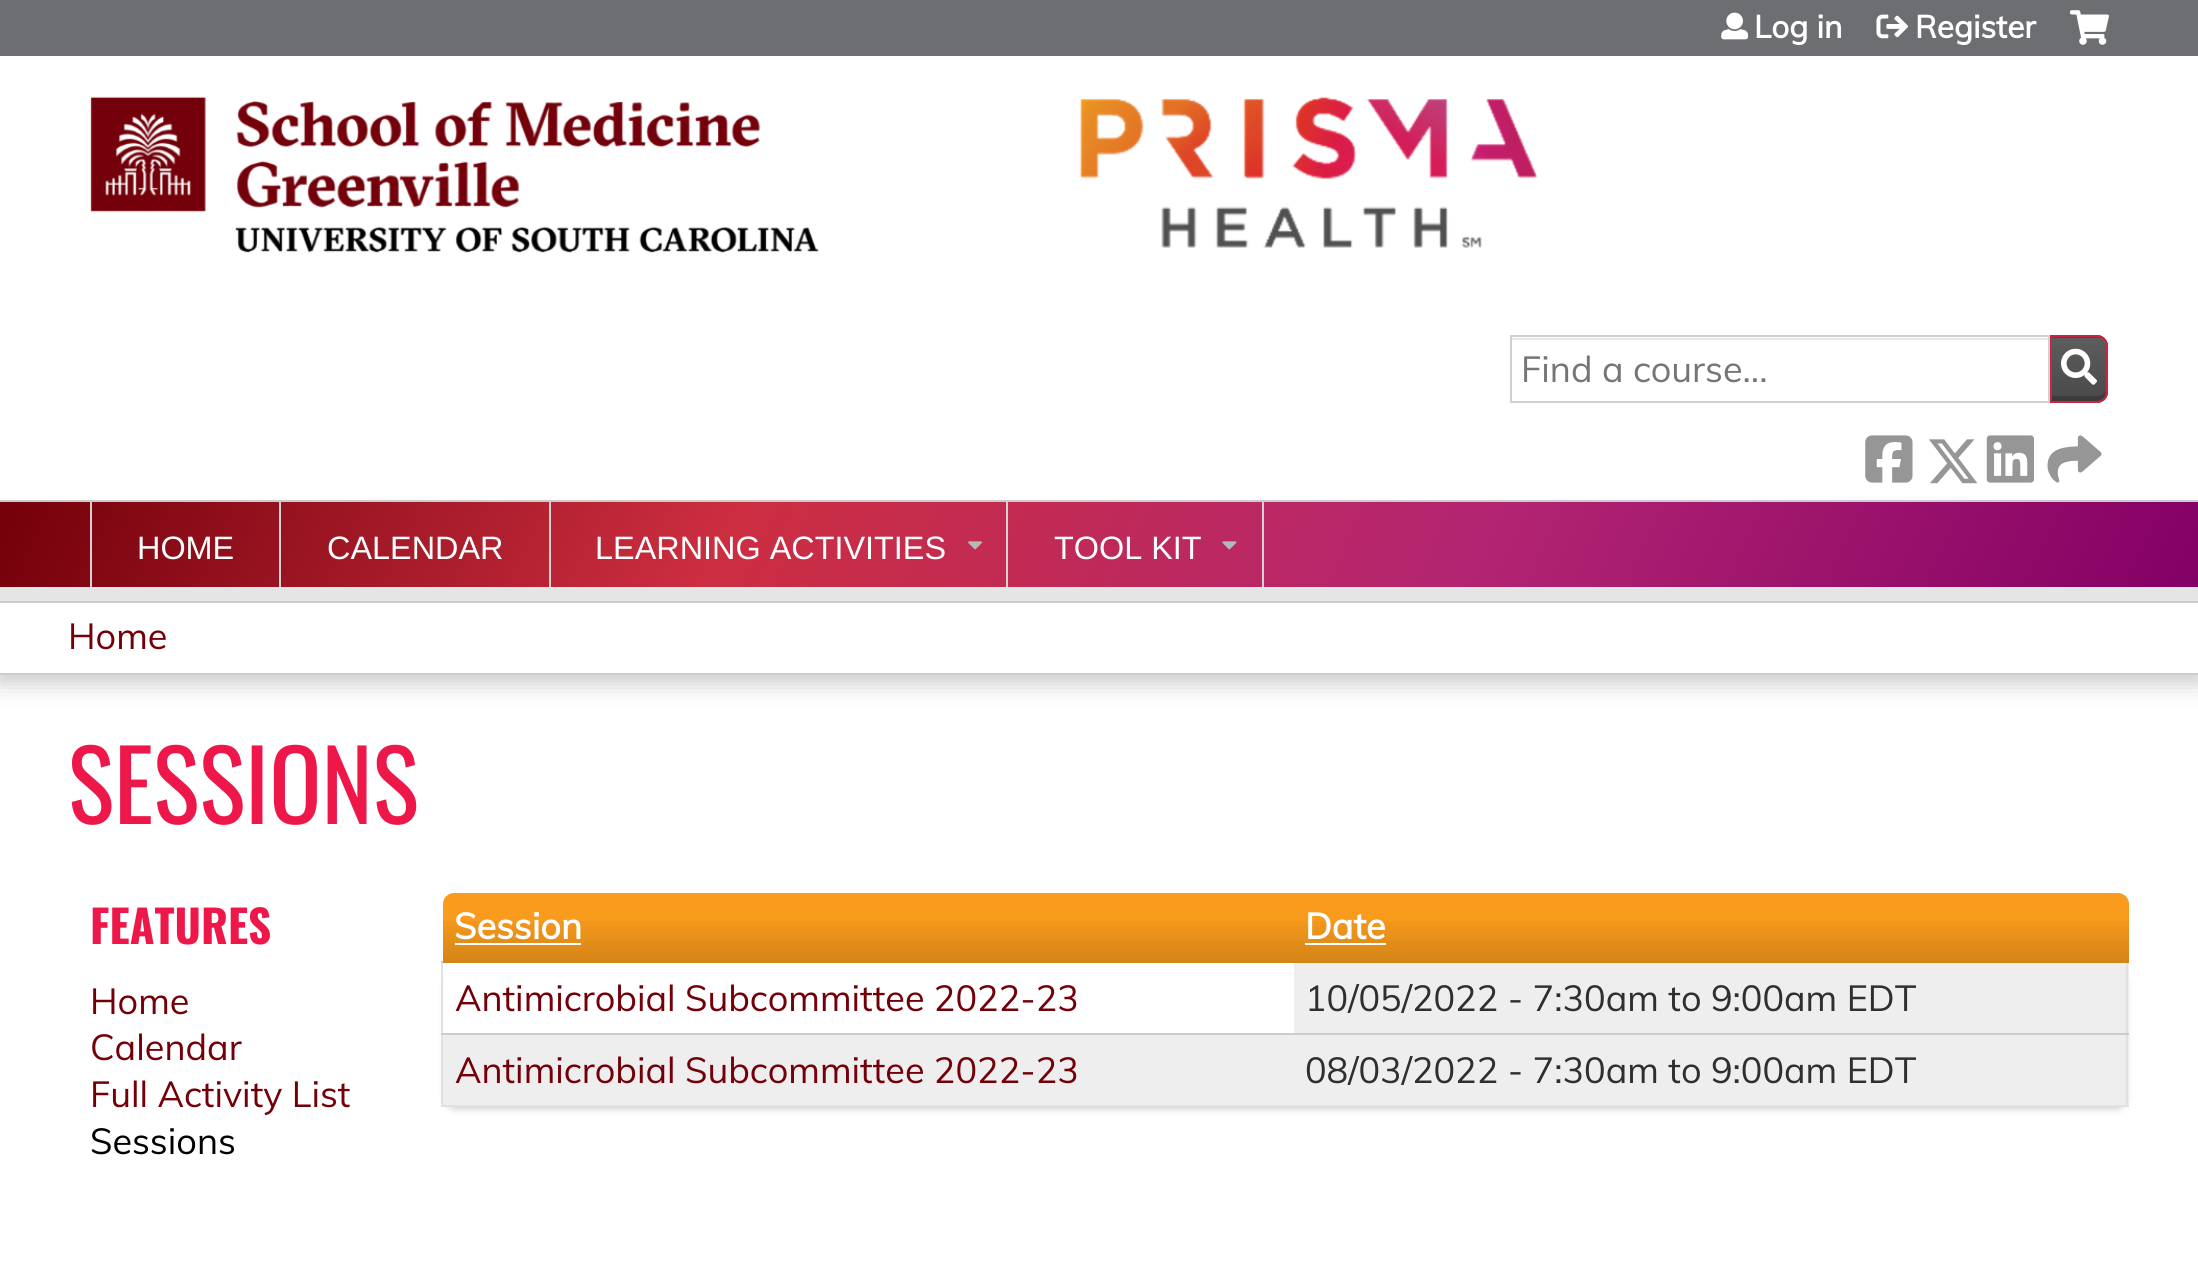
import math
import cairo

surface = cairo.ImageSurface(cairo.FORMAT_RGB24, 2198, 1266)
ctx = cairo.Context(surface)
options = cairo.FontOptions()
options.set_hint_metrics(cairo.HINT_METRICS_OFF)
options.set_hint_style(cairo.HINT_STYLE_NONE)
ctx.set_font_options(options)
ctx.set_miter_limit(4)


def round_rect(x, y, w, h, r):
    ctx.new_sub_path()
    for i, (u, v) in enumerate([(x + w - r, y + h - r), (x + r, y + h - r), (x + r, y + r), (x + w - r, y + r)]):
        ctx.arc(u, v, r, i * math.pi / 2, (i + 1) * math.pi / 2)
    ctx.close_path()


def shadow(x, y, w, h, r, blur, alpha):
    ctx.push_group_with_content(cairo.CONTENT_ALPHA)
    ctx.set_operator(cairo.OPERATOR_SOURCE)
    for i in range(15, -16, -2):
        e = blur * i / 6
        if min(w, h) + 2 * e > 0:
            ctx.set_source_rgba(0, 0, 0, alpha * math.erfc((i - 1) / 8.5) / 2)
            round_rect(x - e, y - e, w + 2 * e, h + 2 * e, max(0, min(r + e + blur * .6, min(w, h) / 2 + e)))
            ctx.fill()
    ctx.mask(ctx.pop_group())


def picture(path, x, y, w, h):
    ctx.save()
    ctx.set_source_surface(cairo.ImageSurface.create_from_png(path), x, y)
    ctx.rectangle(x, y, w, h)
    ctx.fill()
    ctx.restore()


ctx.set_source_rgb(1, 1, 1)
ctx.paint()
ctx.set_source_rgb(0.427, 0.431, 0.447)
ctx.rectangle(0, 0, 2198, 56)
ctx.fill()
picture("img1.png", 90, 96, 1448, 157)
picture("img2.png", 1721, 12, 27, 28)
ctx.select_font_face("Muli", cairo.FONT_SLANT_NORMAL, cairo.FONT_WEIGHT_BOLD)
ctx.set_font_size(31.5)
ctx.set_source_rgb(1, 1, 1)
ctx.move_to(1754, 38)
ctx.show_text("Log in")
picture("img3.png", 1876, 14, 32, 25)
ctx.move_to(1915, 38)
ctx.show_text("Register")
picture("img4.png", 2070, 10, 39, 35)
ctx.set_source_rgb(0.361, 0.361, 0.361)
ctx.new_path()
ctx.move_to(2050, 335)
ctx.line_to(2097, 335)
ctx.curve_to(2103, 335, 2108, 340, 2108, 346)
ctx.line_to(2108, 392)
ctx.curve_to(2108, 398, 2103, 403, 2097, 403)
ctx.line_to(2050, 403)
ctx.close_path()
ctx.fill()
ctx.save()
ctx.new_path()
ctx.move_to(2050, 335)
ctx.line_to(2097, 335)
ctx.curve_to(2103, 335, 2108, 340, 2108, 346)
ctx.line_to(2108, 392)
ctx.curve_to(2108, 398, 2103, 403, 2097, 403)
ctx.line_to(2050, 403)
ctx.close_path()
ctx.clip()
gradient = cairo.LinearGradient(2079, 338, 2079, 275)
gradient.add_color_stop_rgba(0, 0, 0, 0, 0.2)
gradient.add_color_stop_rgba(1, 0, 0, 0, 0)
ctx.set_source(gradient)
ctx.rectangle(2050, 335, 58, 3)
ctx.fill()
gradient = cairo.LinearGradient(2079, 401, 2079, 338)
gradient.add_color_stop_rgba(0, 0, 0, 0, 0.2)
gradient.add_color_stop_rgba(1, 0, 0, 0, 0)
ctx.set_source(gradient)
ctx.rectangle(2052, 345, 56, 56)
ctx.fill()
ctx.restore()
ctx.set_source_rgba(0, 0, 0, 0.2)
ctx.new_path()
ctx.move_to(2052, 396)
ctx.line_to(2052, 401)
ctx.line_to(2082, 401)
ctx.curve_to(2091, 401, 2106, 404, 2106, 391)
ctx.curve_to(2104, 394, 2101, 396, 2097, 396)
ctx.close_path()
ctx.fill()
ctx.new_path()
ctx.move_to(2051, 336)
ctx.line_to(2097, 336)
ctx.curve_to(2102.5, 336, 2107, 340.5, 2107, 346)
ctx.line_to(2107, 392)
ctx.curve_to(2107, 397.5, 2102.5, 402, 2097, 402)
ctx.line_to(2051, 402)
ctx.close_path()
ctx.set_source_rgb(0.8, 0.137, 0.251)
ctx.stroke()
ctx.set_source_rgb(0.902, 0.902, 0.902)
ctx.rectangle(1512, 338, 536, 2)
ctx.fill()
ctx.rectangle(1511, 336, 538, 66)
ctx.set_source_rgb(0.82, 0.82, 0.82)
ctx.stroke()
ctx.select_font_face("Muli")
ctx.set_font_size(36)
ctx.set_source_rgb(0.459, 0.459, 0.459)
ctx.move_to(1521, 382)
ctx.show_text("Find a course...")
picture("img5.png", 2061, 348, 36, 37)
picture("img6.png", 1865, 435, 48, 48)
picture("img7.png", 1929, 439, 49, 45)
picture("img8.png", 1986, 435, 48, 48)
picture("img9.png", 2047, 435, 55, 48)
ctx.set_source_rgb(0, 0, 0)
shadow(-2, 605, 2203, 79, 0, 11, 0.2)
gradient = cairo.LinearGradient(180, 116, 2018, 973)
gradient.add_color_stop_rgba(0, 0.451, 0, 0.039, 1)
gradient.add_color_stop_rgba(0.33, 0.8, 0.18, 0.251, 1)
gradient.add_color_stop_rgba(0.67, 0.702, 0.145, 0.447, 1)
gradient.add_color_stop_rgba(1, 0.514, 0, 0.396, 1)
ctx.set_source(gradient)
ctx.rectangle(0, 502, 2198, 85)
ctx.fill()
ctx.set_source_rgb(0.8, 0.8, 0.8)
ctx.rectangle(0, 500, 2198, 2)
ctx.fill()
ctx.set_source_rgb(0.898, 0.898, 0.898)
ctx.rectangle(0, 587, 2198, 14)
ctx.fill()
ctx.set_source_rgb(0.824, 0.824, 0.824)
ctx.rectangle(279, 502, 2, 85)
ctx.fill()
ctx.rectangle(90, 502, 2, 85)
ctx.fill()
ctx.select_font_face("Liberation Sans")
ctx.set_font_size(32.4)
ctx.set_source_rgb(1, 1, 1)
ctx.move_to(137, 559)
ctx.show_text("HOME")
ctx.set_source_rgb(0.824, 0.824, 0.824)
ctx.rectangle(549, 502, 2, 85)
ctx.fill()
ctx.set_source_rgb(1, 1, 1)
ctx.move_to(327, 559)
ctx.show_text("CALENDAR")
ctx.set_source_rgb(0.824, 0.824, 0.824)
ctx.rectangle(1006, 502, 2, 85)
ctx.fill()
ctx.set_source_rgb(1, 1, 1)
ctx.move_to(595, 559)
ctx.show_text("LEARNING ACTIVITIES")
picture("img10.png", 968, 541, 15, 9)
ctx.set_source_rgb(0.824, 0.824, 0.824)
ctx.rectangle(1262, 502, 2, 85)
ctx.fill()
ctx.set_source_rgb(1, 1, 1)
ctx.move_to(1054, 559)
ctx.show_text("TOOL KIT")
picture("img11.png", 1222, 541, 15, 9)
ctx.rectangle(0, 603, 2198, 70)
ctx.fill()
ctx.set_source_rgb(0.8, 0.8, 0.8)
ctx.rectangle(0, 601, 2198, 2)
ctx.fill()
ctx.rectangle(0, 673, 2198, 2)
ctx.fill()
ctx.select_font_face("Muli")
ctx.set_font_size(36)
ctx.set_source_rgb(0.451, 0, 0.039)
ctx.move_to(68, 649)
ctx.show_text("Home")
ctx.select_font_face("Oswald")
ctx.set_font_size(97)
ctx.set_source_rgb(0.929, 0.094, 0.286)
ctx.move_to(68, 824)
ctx.show_text("SESSIONS")
ctx.select_font_face("Oswald", cairo.FONT_SLANT_NORMAL, cairo.FONT_WEIGHT_BOLD)
ctx.set_font_size(45)
ctx.move_to(90, 944)
ctx.show_text("FEATURES")
ctx.select_font_face("Muli")
ctx.set_font_size(36)
ctx.set_source_rgb(0.451, 0, 0.039)
ctx.move_to(90, 1014)
ctx.show_text("Home")
ctx.move_to(90, 1060)
ctx.show_text("Calendar")
ctx.move_to(90, 1107)
ctx.show_text("Full Activity List")
ctx.set_source_rgb(0, 0, 0)
ctx.move_to(90, 1154)
ctx.show_text("Sessions")
ctx.set_source_rgb(0, 0, 0)
shadow(448, 974, 1676, 133, 7, 4.5, 0.3)
ctx.set_source_rgb(0.976, 0.608, 0.11)
ctx.new_path()
ctx.move_to(454, 893)
ctx.line_to(1294, 893)
ctx.line_to(1294, 963)
ctx.line_to(443, 963)
ctx.line_to(443, 904)
ctx.curve_to(443, 898, 448, 893, 454, 893)
ctx.close_path()
ctx.fill()
gradient = cairo.LinearGradient(869, 963, 869, 893)
gradient.add_color_stop_rgba(0, 0, 0, 0, 0.15)
gradient.add_color_stop_rgba(0.7, 0, 0, 0, 0)
ctx.set_source(gradient)
ctx.rectangle(443, 921, 851, 42)
ctx.fill()
ctx.select_font_face("Muli", cairo.FONT_SLANT_NORMAL, cairo.FONT_WEIGHT_BOLD)
ctx.set_source_rgb(1, 1, 1)
ctx.move_to(454, 939)
ctx.show_text("Session")
ctx.rectangle(455, 943, 126, 2)
ctx.fill()
ctx.set_source_rgb(0.933, 0.933, 0.933)
ctx.rectangle(1294, 963, 835, 70)
ctx.fill()
ctx.rectangle(443, 1035, 1686, 70)
ctx.fill()
ctx.set_source_rgb(0.882, 0.882, 0.882)
ctx.rectangle(2126, 961, 2, 146)
ctx.fill()
ctx.set_source_rgb(0.976, 0.608, 0.11)
ctx.new_path()
ctx.move_to(1294, 893)
ctx.line_to(2118, 893)
ctx.curve_to(2124, 893, 2129, 898, 2129, 904)
ctx.line_to(2129, 963)
ctx.line_to(1294, 963)
ctx.close_path()
ctx.fill()
gradient = cairo.LinearGradient(1711, 963, 1711, 893)
gradient.add_color_stop_rgba(0, 0, 0, 0, 0.15)
gradient.add_color_stop_rgba(0.7, 0, 0, 0, 0)
ctx.set_source(gradient)
ctx.rectangle(1294, 921, 835, 42)
ctx.fill()
ctx.set_source_rgb(1, 1, 1)
ctx.move_to(1305, 939)
ctx.show_text("Date")
ctx.rectangle(1305, 943, 81, 2)
ctx.fill()
ctx.set_source_rgb(0.882, 0.882, 0.882)
ctx.rectangle(441, 1105, 1688, 2)
ctx.fill()
ctx.rectangle(441, 961, 2, 146)
ctx.fill()
ctx.set_source_rgb(1, 1, 1)
ctx.rectangle(443, 966, 851, 67)
ctx.fill()
ctx.set_source_rgb(0.8, 0.8, 0.8)
ctx.rectangle(441, 961, 2, 2)
ctx.fill()
ctx.select_font_face("Muli")
ctx.set_source_rgb(0.451, 0, 0.039)
ctx.move_to(455, 1011)
ctx.show_text("Antimicrobial Subcommittee 2022-23")
ctx.set_source_rgb(0.184, 0.184, 0.184)
ctx.move_to(1305, 1011)
ctx.show_text("10/05/2022 - 7:30am to 9:00am EDT")
ctx.set_source_rgb(0.8, 0.8, 0.8)
ctx.rectangle(441, 1033, 1688, 2)
ctx.fill()
ctx.set_source_rgb(0.451, 0, 0.039)
ctx.move_to(455, 1083)
ctx.show_text("Antimicrobial Subcommittee 2022-23")
ctx.set_source_rgb(0.184, 0.184, 0.184)
ctx.move_to(1305, 1083)
ctx.show_text("08/03/2022 - 7:30am to 9:00am EDT")
surface.write_to_png("page.png")
